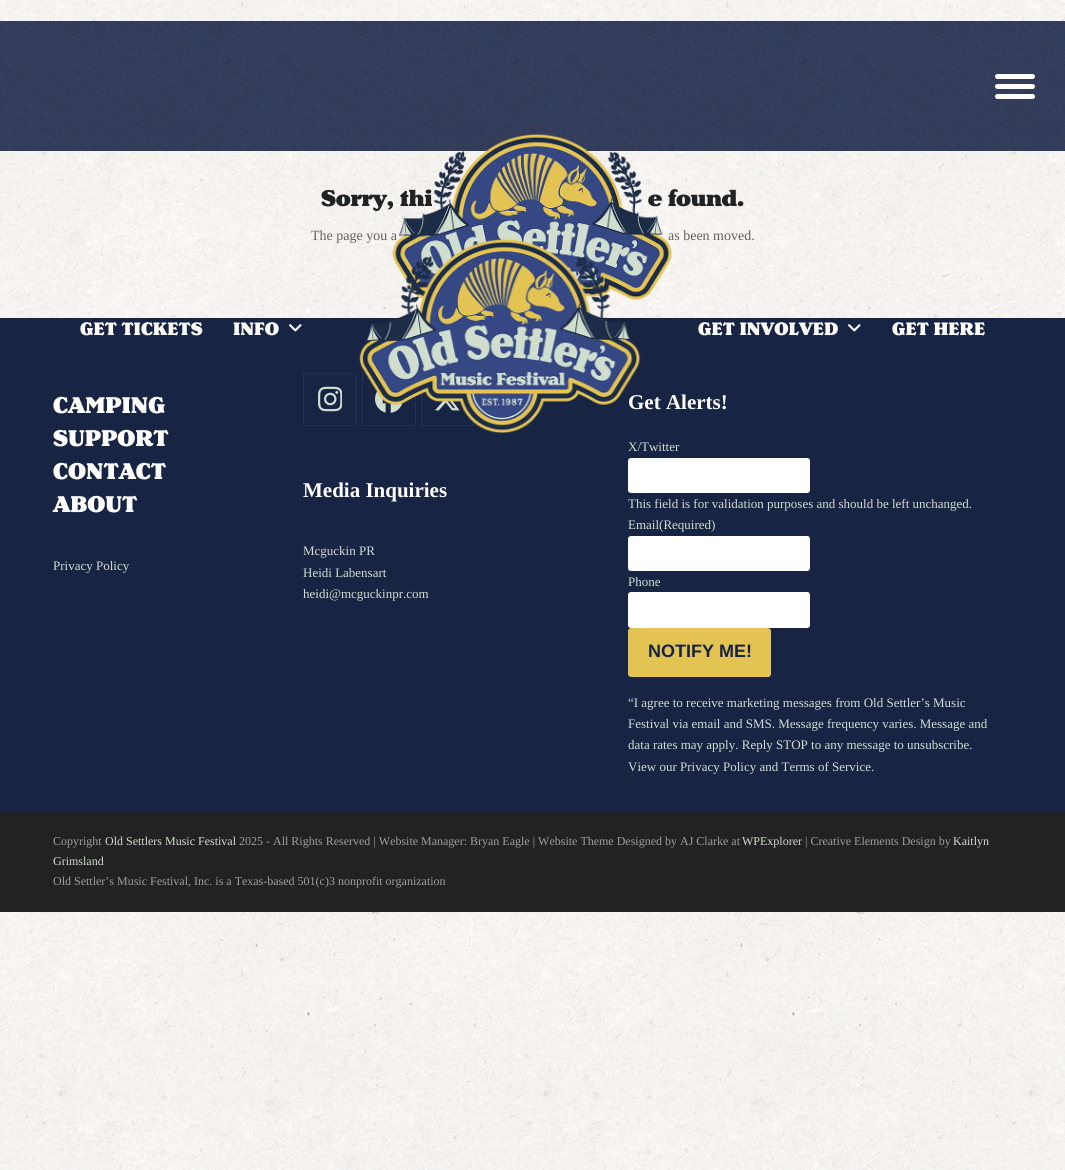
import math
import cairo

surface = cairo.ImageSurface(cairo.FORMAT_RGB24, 1065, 1170)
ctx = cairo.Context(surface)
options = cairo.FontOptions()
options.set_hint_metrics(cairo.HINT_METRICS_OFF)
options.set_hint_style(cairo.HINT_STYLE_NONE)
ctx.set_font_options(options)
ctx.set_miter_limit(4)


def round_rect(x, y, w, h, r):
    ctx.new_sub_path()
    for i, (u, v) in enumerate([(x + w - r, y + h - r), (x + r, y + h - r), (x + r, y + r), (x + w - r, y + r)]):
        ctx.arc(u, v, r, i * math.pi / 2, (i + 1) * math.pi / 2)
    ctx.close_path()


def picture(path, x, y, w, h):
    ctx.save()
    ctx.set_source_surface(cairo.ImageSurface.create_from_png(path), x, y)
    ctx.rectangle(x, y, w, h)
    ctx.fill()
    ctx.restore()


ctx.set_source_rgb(1, 1, 1)
ctx.paint()
picture("img1.png", 0, 0, 1065, 1170)
ctx.select_font_face("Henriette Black")
ctx.set_font_size(24)
ctx.set_source_rgb(0.133, 0.133, 0.133)
ctx.move_to(321, 206)
ctx.show_text("Sorry, thi")
ctx.move_to(648, 206)
ctx.show_text("e found.")
ctx.select_font_face("Liberation Serif")
ctx.set_font_size(14)
ctx.set_source_rgb(0.38, 0.38, 0.38)
ctx.move_to(311, 240)
ctx.show_text("The page you a")
ctx.move_to(668, 240)
ctx.show_text("as been moved.")
picture("img2.png", 0, 21, 1065, 130)
ctx.set_source_rgb(1, 1, 1)
round_rect(995, 84, 40, 5, 2.5)
ctx.fill()
round_rect(995, 74, 40, 5, 2.5)
ctx.fill()
round_rect(995, 94, 40, 5, 2.5)
ctx.fill()
picture("img3.png", 392, 133, 280, 168)
ctx.set_source_rgb(0.09, 0.141, 0.267)
ctx.rectangle(0, 318, 1065, 494)
ctx.fill()
ctx.select_font_face("Henriette Black")
ctx.set_font_size(19)
ctx.set_source_rgb(1, 1, 1)
ctx.move_to(80, 335)
ctx.show_text("GET TICKETS")
ctx.move_to(233, 335)
ctx.show_text("INFO")
picture("img4.png", 289, 324, 13, 8)
ctx.rectangle(362.5, 373.5, 53, 52)
ctx.set_source_rgb(0.145, 0.192, 0.31)
ctx.set_line_width(1)
ctx.stroke()
picture("img7.png", 375, 390, 28, 23)
ctx.rectangle(421.5, 373.5, 52, 52)
ctx.stroke()
picture("img8.png", 435, 400, 25, 11)
ctx.rectangle(479.5, 373.5, 53, 52)
ctx.stroke()
ctx.select_font_face("Liberation Serif", cairo.FONT_SLANT_NORMAL, cairo.FONT_WEIGHT_BOLD)
ctx.set_font_size(21)
ctx.set_source_rgb(1, 1, 1)
ctx.move_to(628, 409)
ctx.show_text("Get Alerts!")
picture("img5.png", 359, 238, 282, 196)
ctx.select_font_face("Henriette Black")
ctx.set_font_size(19)
ctx.move_to(698, 335)
ctx.show_text("GET INVOLVED")
picture("img4.png", 848, 324, 13, 8)
ctx.move_to(892, 335)
ctx.show_text("GET HERE")
ctx.set_font_size(24)
ctx.move_to(53, 413)
ctx.show_text("CAMPING")
ctx.move_to(53, 446)
ctx.show_text("SUPPORT")
ctx.move_to(53, 479)
ctx.show_text("CONTACT")
ctx.move_to(53, 512)
ctx.show_text("ABOUT")
ctx.select_font_face("Liberation Serif")
ctx.set_font_size(13)
ctx.set_source_rgb(0.824, 0.867, 0.812)
ctx.move_to(53, 570)
ctx.show_text("Privacy Policy")
ctx.rectangle(303.5, 373.5, 53, 52)
ctx.set_source_rgb(0.145, 0.192, 0.31)
ctx.stroke()
picture("img6.png", 318, 386, 24, 26)
ctx.select_font_face("Liberation Serif", cairo.FONT_SLANT_NORMAL, cairo.FONT_WEIGHT_BOLD)
ctx.set_font_size(21)
ctx.set_source_rgb(1, 1, 1)
ctx.move_to(303, 497)
ctx.show_text("Media Inquiries")
ctx.select_font_face("Liberation Serif")
ctx.set_font_size(13)
ctx.set_source_rgb(0.824, 0.867, 0.812)
ctx.move_to(303, 555)
ctx.show_text("Mcguckin PR")
ctx.move_to(303, 577)
ctx.show_text("Heidi Labensart")
ctx.move_to(303, 598)
ctx.show_text("heidi@mcguckinpr.com")
ctx.move_to(628, 451)
ctx.show_text("X/Twitter")
ctx.set_source_rgb(1, 1, 1)
round_rect(628, 458, 182, 35, 3)
ctx.fill()
ctx.rectangle(628.5, 458.5, 181, 34)
ctx.set_source_rgba(1, 1, 1, 0.06)
ctx.stroke()
ctx.set_source_rgb(0.824, 0.867, 0.812)
ctx.move_to(628, 508)
ctx.show_text("This field is for validation purposes and should be left unchanged.")
ctx.move_to(628, 529)
ctx.show_text("Email(Required)")
ctx.set_source_rgb(1, 1, 1)
round_rect(628, 536, 182, 35, 3)
ctx.fill()
ctx.rectangle(628.5, 536.5, 181, 34)
ctx.set_source_rgba(1, 1, 1, 0.06)
ctx.stroke()
ctx.set_source_rgb(0.824, 0.867, 0.812)
ctx.move_to(628, 586)
ctx.show_text("Phone")
ctx.set_source_rgb(1, 1, 1)
round_rect(628, 592, 182, 36, 3)
ctx.fill()
ctx.rectangle(628.5, 592.5, 181, 35)
ctx.set_source_rgba(1, 1, 1, 0.06)
ctx.stroke()
ctx.set_source_rgb(0.89, 0.765, 0.322)
round_rect(628, 628, 143, 49, 3)
ctx.fill()
ctx.select_font_face("Liberation Sans", cairo.FONT_SLANT_NORMAL, cairo.FONT_WEIGHT_BOLD)
ctx.set_font_size(18)
ctx.set_source_rgb(0.09, 0.141, 0.267)
ctx.move_to(648, 657)
ctx.show_text("NOTIFY ME!")
ctx.select_font_face("Liberation Serif")
ctx.set_font_size(13)
ctx.set_source_rgb(0.824, 0.867, 0.812)
ctx.move_to(628, 707)
ctx.show_text("“I agree to receive marketing messages from Old Settler’s Music")
ctx.move_to(628, 728)
ctx.show_text("Festival via email and SMS. Message frequency varies. Message and")
ctx.move_to(628, 749)
ctx.show_text("data rates may apply. Reply STOP to any message to unsubscribe.")
ctx.move_to(628, 771)
ctx.show_text("View our Privacy Policy and Terms of Service.")
ctx.set_source_rgb(0.133, 0.133, 0.133)
ctx.rectangle(0, 812, 1065, 100)
ctx.fill()
ctx.set_font_size(12)
ctx.set_source_rgb(0.62, 0.62, 0.62)
ctx.move_to(53, 845)
ctx.show_text("Copyright")
ctx.set_source_rgb(0.824, 0.867, 0.812)
ctx.move_to(105, 845)
ctx.show_text("Old Settlers Music Festival")
ctx.set_source_rgb(0.62, 0.62, 0.62)
ctx.move_to(239, 845)
ctx.show_text("2025 - All Rights Reserved | Website Manager: Bryan Eagle | Website Theme Designed by AJ Clarke at")
ctx.set_source_rgb(0.824, 0.867, 0.812)
ctx.move_to(742, 845)
ctx.show_text("WPExplorer")
ctx.set_source_rgb(0.62, 0.62, 0.62)
ctx.move_to(805, 845)
ctx.show_text("| Creative Elements Design by")
ctx.set_source_rgb(0.824, 0.867, 0.812)
ctx.move_to(953, 845)
ctx.show_text("Kaitlyn")
ctx.move_to(53, 865)
ctx.show_text("Grimsland")
ctx.set_source_rgb(0.62, 0.62, 0.62)
ctx.move_to(53, 885)
ctx.show_text("Old Settler’s Music Festival, Inc. is a Texas-based 501(c)3 nonprofit organization")
surface.write_to_png("page.png")
